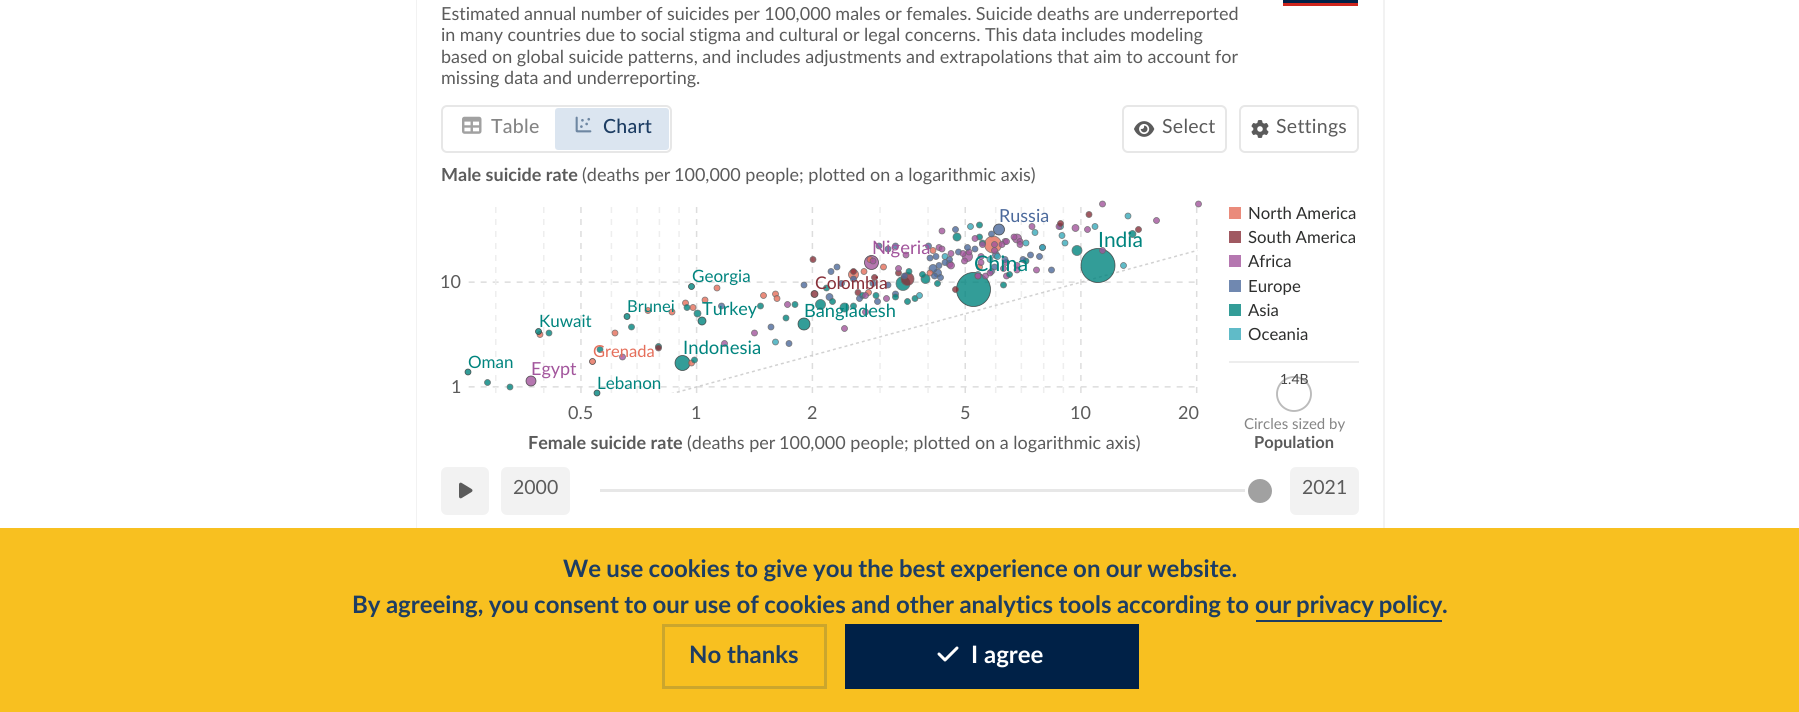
import math
import cairo

surface = cairo.ImageSurface(cairo.FORMAT_RGB24, 1799, 712)
ctx = cairo.Context(surface)
options = cairo.FontOptions()
options.set_hint_metrics(cairo.HINT_METRICS_OFF)
options.set_hint_style(cairo.HINT_STYLE_NONE)
ctx.set_font_options(options)
ctx.set_miter_limit(4)


def spaced_text(x, y, s, letter, word):
    ctx.move_to(x, y)
    for ch in s:
        ctx.show_text(ch)
        ctx.rel_move_to(letter + word * (ch == ' '), 0)


def round_rect(x, y, w, h, r):
    ctx.new_sub_path()
    for i, (u, v) in enumerate([(x + w - r, y + h - r), (x + r, y + h - r), (x + r, y + r), (x + w - r, y + r)]):
        ctx.arc(u, v, r, i * math.pi / 2, (i + 1) * math.pi / 2)
    ctx.close_path()


def picture(path, x, y, w, h):
    ctx.save()
    ctx.set_source_surface(cairo.ImageSurface.create_from_png(path), x, y)
    ctx.rectangle(x, y, w, h)
    ctx.fill()
    ctx.restore()


ctx.set_source_rgb(1, 1, 1)
ctx.paint()
ctx.rectangle(417, -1, 967, 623)
ctx.set_source_rgb(0.949, 0.949, 0.949)
ctx.stroke()
ctx.set_source_rgb(1, 1, 1)
ctx.rectangle(417, 0, 1, 528)
ctx.fill()
picture("img1.png", 1283, 0, 75, 6)
ctx.select_font_face("Lato")
ctx.set_font_size(18)
ctx.set_source_rgb(0.357, 0.357, 0.357)
spaced_text(441, 20, "Estimated annual number of suicides per 100,000 males or females. Suicide deaths are underreported", 0, -0.25)
spaced_text(441, 41, "in many countries due to social stigma and cultural or legal concerns. This data includes modeling", 0, -0.1)
ctx.move_to(441, 63)
ctx.show_text("based on global suicide patterns, and includes adjustments and extrapolations that aim to account for")
ctx.move_to(441, 84)
ctx.show_text("missing data and underreporting.")
round_rect(442, 106, 229, 46, 5)
ctx.set_source_rgb(0.906, 0.906, 0.906)
ctx.stroke()
picture("img2.png", 462, 116, 20, 18)
ctx.select_font_face("Lato Medium")
ctx.set_font_size(19.5)
ctx.set_source_rgb(0.522, 0.522, 0.522)
spaced_text(491, 133, "Table", 0.25, 0)
ctx.set_source_rgb(0.859, 0.898, 0.941)
round_rect(555, 108, 114, 42, 3)
ctx.fill()
picture("img3.png", 575, 116, 17, 17)
ctx.set_source_rgb(0.114, 0.239, 0.388)
spaced_text(603, 133, "Chart", 0.25, 0)
round_rect(1123, 106, 103, 46, 5)
ctx.set_source_rgb(0.906, 0.906, 0.906)
ctx.stroke()
picture("img4.png", 1134, 121, 21, 16)
ctx.select_font_face("Lato")
ctx.set_source_rgb(0.357, 0.357, 0.357)
spaced_text(1162, 133, "Select", 0.25, 0)
round_rect(1240, 106, 118, 46, 5)
ctx.set_source_rgb(0.906, 0.906, 0.906)
ctx.stroke()
picture("img5.png", 1251, 120, 18, 18)
ctx.set_source_rgb(0.357, 0.357, 0.357)
spaced_text(1276, 133, "Settings", 0.25, 0)
ctx.select_font_face("Lato", cairo.FONT_SLANT_NORMAL, cairo.FONT_WEIGHT_BOLD)
ctx.set_font_size(18)
ctx.move_to(441, 181)
ctx.show_text("Male suicide rate")
ctx.select_font_face("Lato")
ctx.move_to(582, 181)
ctx.show_text("(deaths per")
ctx.move_to(674, 181)
ctx.show_text("100,000 people; plotted on a logarithmic axis)")
ctx.move_to(568, 419)
ctx.show_text("0.5")
ctx.move_to(691, 419)
ctx.show_text("1")
ctx.move_to(807, 419)
ctx.show_text("2")
ctx.move_to(960, 419)
ctx.show_text("5")
ctx.move_to(1070, 419)
ctx.show_text("10")
ctx.move_to(1178, 419)
ctx.show_text("20")
picture("img6.png", 464, 200, 895, 212)
ctx.set_source_rgb(0.298, 0.416, 0.612)
ctx.move_to(999, 222)
ctx.show_text("Russia")
ctx.set_font_size(16.75)
ctx.set_source_rgb(0.176, 0.18, 0.176)
ctx.move_to(1248, 219)
ctx.show_text("North America")
ctx.set_font_size(18.5)
ctx.set_source_rgb(0.635, 0.333, 0.612)
ctx.move_to(872, 254)
ctx.show_text("Nigeria")
ctx.set_font_size(21)
ctx.set_source_rgb(0, 0.518, 0.494)
ctx.move_to(1098, 247)
ctx.show_text("India")
ctx.set_font_size(16.75)
ctx.set_source_rgb(0.176, 0.18, 0.176)
ctx.move_to(1248, 243)
ctx.show_text("South America")
ctx.set_font_size(21.5)
ctx.set_source_rgb(0, 0.518, 0.494)
ctx.move_to(974, 271)
ctx.show_text("China")
ctx.set_font_size(16.75)
ctx.set_source_rgb(0.176, 0.18, 0.176)
ctx.move_to(1248, 267)
ctx.show_text("Africa")
ctx.set_font_size(18)
ctx.set_source_rgb(0.357, 0.357, 0.357)
ctx.move_to(440, 288)
ctx.show_text("10")
ctx.set_font_size(17)
ctx.set_source_rgb(0, 0.518, 0.494)
ctx.move_to(692, 282)
ctx.show_text("Georgia")
ctx.set_font_size(17.5)
ctx.set_source_rgb(0.533, 0.188, 0.224)
ctx.move_to(815, 289)
ctx.show_text("Colombia")
ctx.set_font_size(16.75)
ctx.set_source_rgb(0.176, 0.18, 0.176)
ctx.move_to(1248, 292)
ctx.show_text("Europe")
ctx.set_font_size(16.5)
ctx.set_source_rgb(0, 0.518, 0.494)
ctx.move_to(627, 312)
ctx.show_text("Brunei")
ctx.set_font_size(18)
ctx.move_to(702, 315)
ctx.show_text("Turkey")
ctx.set_font_size(18.25)
ctx.move_to(804, 317)
ctx.show_text("Bangladesh")
ctx.set_font_size(16.75)
ctx.set_source_rgb(0.176, 0.18, 0.176)
ctx.move_to(1248, 316)
ctx.show_text("Asia")
ctx.set_font_size(17)
ctx.set_source_rgb(0, 0.518, 0.494)
ctx.move_to(539, 327)
ctx.show_text("Kuwait")
ctx.set_font_size(16.75)
ctx.set_source_rgb(0.176, 0.18, 0.176)
ctx.move_to(1248, 340)
ctx.show_text("Oceania")
ctx.set_font_size(16.5)
ctx.set_source_rgb(0.898, 0.431, 0.353)
ctx.move_to(593, 357)
ctx.show_text("Grenada")
ctx.set_font_size(18.5)
ctx.set_source_rgb(0, 0.518, 0.494)
ctx.move_to(683, 354)
ctx.show_text("Indonesia")
ctx.set_font_size(18)
ctx.set_source_rgb(0.357, 0.357, 0.357)
ctx.move_to(451, 393)
ctx.show_text("1")
ctx.set_font_size(17)
ctx.set_source_rgb(0, 0.518, 0.494)
ctx.move_to(468, 368)
ctx.show_text("Oman")
ctx.set_font_size(18)
ctx.set_source_rgb(0.635, 0.333, 0.612)
ctx.move_to(531, 375)
ctx.show_text("Egypt")
ctx.set_font_size(17)
ctx.set_source_rgb(0, 0.518, 0.494)
ctx.move_to(597, 389)
ctx.show_text("Lebanon")
ctx.set_font_size(14)
ctx.set_source_rgb(0.267, 0.267, 0.267)
ctx.move_to(1280, 384)
ctx.show_text("1.4B")
ctx.set_font_size(15)
ctx.set_source_rgb(0.522, 0.522, 0.522)
ctx.move_to(1244, 429)
ctx.show_text("Circles sized by")
ctx.select_font_face("Lato", cairo.FONT_SLANT_NORMAL, cairo.FONT_WEIGHT_BOLD)
ctx.set_font_size(18)
ctx.set_source_rgb(0.357, 0.357, 0.357)
ctx.move_to(528, 449)
ctx.show_text("Female suicide rate")
ctx.select_font_face("Lato")
ctx.move_to(687, 449)
ctx.show_text("(deaths per")
ctx.move_to(779, 449)
ctx.show_text("100,000 people; plotted on a logarithmic axis)")
ctx.select_font_face("Lato", cairo.FONT_SLANT_NORMAL, cairo.FONT_WEIGHT_BOLD)
ctx.set_font_size(16.5)
ctx.move_to(1254, 448)
ctx.show_text("Population")
ctx.set_source_rgb(0.949, 0.949, 0.949)
round_rect(441, 467, 48, 48, 6)
ctx.fill()
picture("img7.png", 459, 482, 14, 17)
round_rect(501, 467, 69, 48, 6)
ctx.fill()
ctx.select_font_face("Lato")
ctx.set_font_size(19.5)
ctx.set_source_rgb(0.357, 0.357, 0.357)
ctx.move_to(513, 494)
ctx.show_text("2000")
ctx.set_source_rgb(0.906, 0.906, 0.906)
ctx.rectangle(600, 489, 646, 3)
ctx.fill()
ctx.arc(1260, 491, 13.5, 0, 2 * math.pi)
ctx.set_source_rgb(1, 1, 1)
ctx.set_line_width(3)
ctx.stroke()
ctx.set_source_rgb(0.631, 0.631, 0.631)
ctx.arc(1260, 491, 13.5, 0, 2 * math.pi)
ctx.fill_preserve()
ctx.set_source_rgb(1, 1, 1)
ctx.stroke()
ctx.set_source_rgb(0.949, 0.949, 0.949)
round_rect(1290, 467, 69, 48, 6)
ctx.fill()
ctx.set_source_rgb(0.357, 0.357, 0.357)
ctx.move_to(1302, 494)
ctx.show_text("2021")
ctx.set_source_rgb(0.969, 0.753, 0.125)
ctx.rectangle(0, 528, 1799, 184)
ctx.fill()
ctx.select_font_face("Lato", cairo.FONT_SLANT_NORMAL, cairo.FONT_WEIGHT_BOLD)
ctx.set_font_size(24)
ctx.set_source_rgb(0.114, 0.239, 0.388)
spaced_text(563, 577, "We use cookies to give you the best experience on our website.", 0, -0.5)
spaced_text(352, 613, "By agreeing, you consent to our use of cookies and other analytics tools according to", 0, -0.4)
spaced_text(1255, 613, "our privacy policy", 0, -1)
ctx.rectangle(1256, 620, 186, 2)
ctx.fill()
ctx.move_to(1442, 613)
ctx.show_text(".")
ctx.rectangle(663.5, 625.5, 162, 62)
ctx.set_source_rgb(0.796, 0.651, 0.176)
ctx.stroke()
ctx.set_source_rgb(0.114, 0.239, 0.388)
ctx.move_to(689, 663)
ctx.show_text("No thanks")
ctx.set_source_rgb(0, 0.129, 0.278)
ctx.rectangle(845, 624, 294, 65)
ctx.fill()
picture("img8.png", 937, 646, 22, 16)
ctx.set_source_rgb(1, 1, 1)
ctx.move_to(971, 663)
ctx.show_text("I agree")
surface.write_to_png("page.png")
